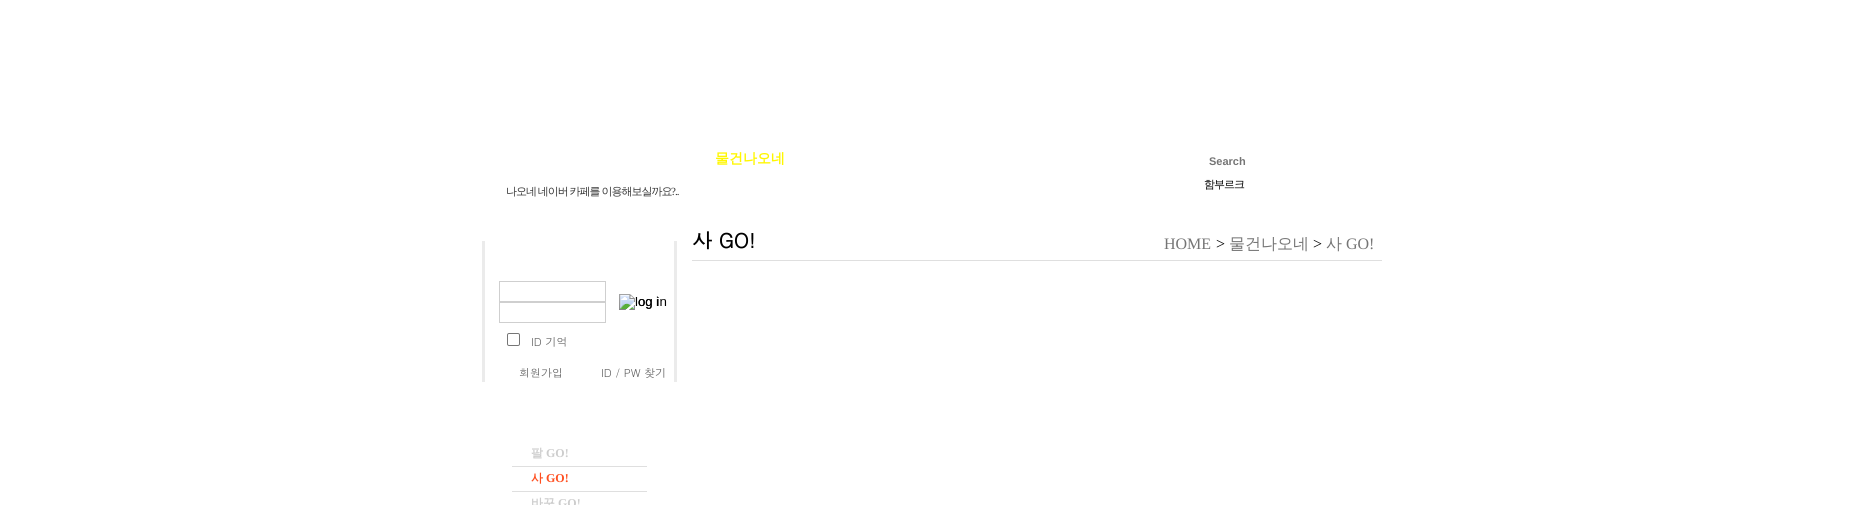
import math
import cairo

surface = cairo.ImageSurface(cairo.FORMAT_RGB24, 1872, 505)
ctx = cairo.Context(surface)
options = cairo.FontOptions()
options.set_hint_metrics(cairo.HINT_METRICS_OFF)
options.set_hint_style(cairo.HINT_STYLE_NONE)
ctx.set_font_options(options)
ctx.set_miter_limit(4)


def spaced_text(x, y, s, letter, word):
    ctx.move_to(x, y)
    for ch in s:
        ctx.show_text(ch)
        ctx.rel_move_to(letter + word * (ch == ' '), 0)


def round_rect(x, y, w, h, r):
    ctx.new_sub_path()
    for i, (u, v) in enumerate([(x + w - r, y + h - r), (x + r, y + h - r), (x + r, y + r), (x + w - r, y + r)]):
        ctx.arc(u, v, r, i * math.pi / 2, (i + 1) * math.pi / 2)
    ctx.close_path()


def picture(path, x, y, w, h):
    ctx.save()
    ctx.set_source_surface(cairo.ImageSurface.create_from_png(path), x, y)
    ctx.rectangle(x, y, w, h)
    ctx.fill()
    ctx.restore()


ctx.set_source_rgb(1, 1, 1)
ctx.paint()
ctx.select_font_face("WenQuanYi Zen Hei", cairo.FONT_SLANT_NORMAL, cairo.FONT_WEIGHT_BOLD)
ctx.set_font_size(14)
ctx.set_source_rgb(1, 0.965, 0)
ctx.move_to(715, 163)
ctx.show_text("물건나오네")
ctx.select_font_face("Liberation Sans", cairo.FONT_SLANT_NORMAL, cairo.FONT_WEIGHT_BOLD)
ctx.set_font_size(11)
ctx.set_source_rgb(0.459, 0.459, 0.459)
ctx.move_to(1209, 165)
ctx.show_text("Search")
ctx.select_font_face("WenQuanYi Zen Hei Medium")
ctx.set_source_rgb(0, 0, 0)
spaced_text(1204, 188, "함부르크", -1, 0)
ctx.set_source_rgb(0.2, 0.2, 0.2)
spaced_text(506, 195, "나오네 네이버 카페를 이용해보실까요", -1, -0.5)
ctx.select_font_face("Liberation Serif")
spaced_text(671, 195, "?..", -1, 0)
ctx.set_source_rgb(0.875, 0.875, 0.875)
ctx.rectangle(692, 260, 690, 1)
ctx.fill()
ctx.select_font_face("Dotum", cairo.FONT_SLANT_NORMAL, cairo.FONT_WEIGHT_BOLD)
ctx.set_font_size(20)
ctx.set_source_rgb(0, 0, 0)
ctx.move_to(692, 248)
ctx.show_text("사 GO!")
ctx.select_font_face("Liberation Serif")
ctx.set_font_size(16)
ctx.set_source_rgb(0.459, 0.459, 0.459)
ctx.move_to(1164, 249)
ctx.show_text("HOME")
ctx.set_source_rgb(0, 0, 0)
ctx.move_to(1216, 249)
ctx.show_text(">")
ctx.select_font_face("WenQuanYi Zen Hei Medium")
ctx.set_source_rgb(0.459, 0.459, 0.459)
ctx.move_to(1229, 249)
ctx.show_text("물건나오네")
ctx.select_font_face("Liberation Serif")
ctx.set_source_rgb(0, 0, 0)
ctx.move_to(1313, 249)
ctx.show_text(">")
ctx.select_font_face("WenQuanYi Zen Hei Medium")
ctx.set_source_rgb(0.459, 0.459, 0.459)
ctx.move_to(1326, 249)
ctx.show_text("사")
ctx.select_font_face("Liberation Serif")
ctx.move_to(1346, 249)
ctx.show_text("GO!")
ctx.set_source_rgb(0.918, 0.918, 0.918)
ctx.rectangle(482, 241, 3, 141)
ctx.fill()
ctx.rectangle(499.5, 281.5, 106, 20)
ctx.set_source_rgb(0.812, 0.812, 0.812)
ctx.set_line_width(1)
ctx.stroke()
ctx.rectangle(499.5, 302.5, 106, 20)
ctx.stroke()
picture("img1.png", 619, 294, 48, 16)
ctx.select_font_face("Liberation Sans")
ctx.set_font_size(13)
ctx.set_source_rgb(0, 0, 0)
ctx.move_to(638, 306)
ctx.show_text("og i")
round_rect(507.5, 333.5, 12, 12, 1.5)
ctx.set_source_rgb(0.463, 0.463, 0.463)
ctx.stroke()
ctx.select_font_face("Dotum")
ctx.set_font_size(11)
ctx.set_source_rgb(0.373, 0.373, 0.373)
ctx.move_to(531, 346)
ctx.show_text("ID 기억")
ctx.move_to(519, 377)
ctx.show_text("회원가입")
ctx.move_to(601, 377)
ctx.show_text("ID / PW 찾기")
ctx.set_source_rgb(0.918, 0.918, 0.918)
ctx.rectangle(674, 241, 3, 141)
ctx.fill()
ctx.select_font_face("WenQuanYi Zen Hei", cairo.FONT_SLANT_NORMAL, cairo.FONT_WEIGHT_BOLD)
ctx.set_font_size(12)
ctx.set_source_rgb(0.804, 0.804, 0.804)
ctx.move_to(531, 457)
ctx.show_text("팔")
ctx.select_font_face("Liberation Serif", cairo.FONT_SLANT_NORMAL, cairo.FONT_WEIGHT_BOLD)
ctx.move_to(546, 457)
ctx.show_text("GO!")
ctx.set_source_rgb(0.875, 0.875, 0.875)
ctx.rectangle(512, 466, 135, 1)
ctx.fill()
ctx.select_font_face("WenQuanYi Zen Hei", cairo.FONT_SLANT_NORMAL, cairo.FONT_WEIGHT_BOLD)
ctx.set_source_rgb(1, 0.31, 0.125)
ctx.move_to(531, 482)
ctx.show_text("사")
ctx.select_font_face("Liberation Serif", cairo.FONT_SLANT_NORMAL, cairo.FONT_WEIGHT_BOLD)
ctx.move_to(546, 482)
ctx.show_text("GO!")
ctx.set_source_rgb(0.875, 0.875, 0.875)
ctx.rectangle(512, 491, 135, 1)
ctx.fill()
ctx.select_font_face("WenQuanYi Zen Hei", cairo.FONT_SLANT_NORMAL, cairo.FONT_WEIGHT_BOLD)
ctx.set_source_rgb(0.804, 0.804, 0.804)
ctx.move_to(531, 507)
ctx.show_text("바꾸")
ctx.select_font_face("Liberation Serif", cairo.FONT_SLANT_NORMAL, cairo.FONT_WEIGHT_BOLD)
ctx.move_to(558, 507)
ctx.show_text("GO!")
surface.write_to_png("page.png")
